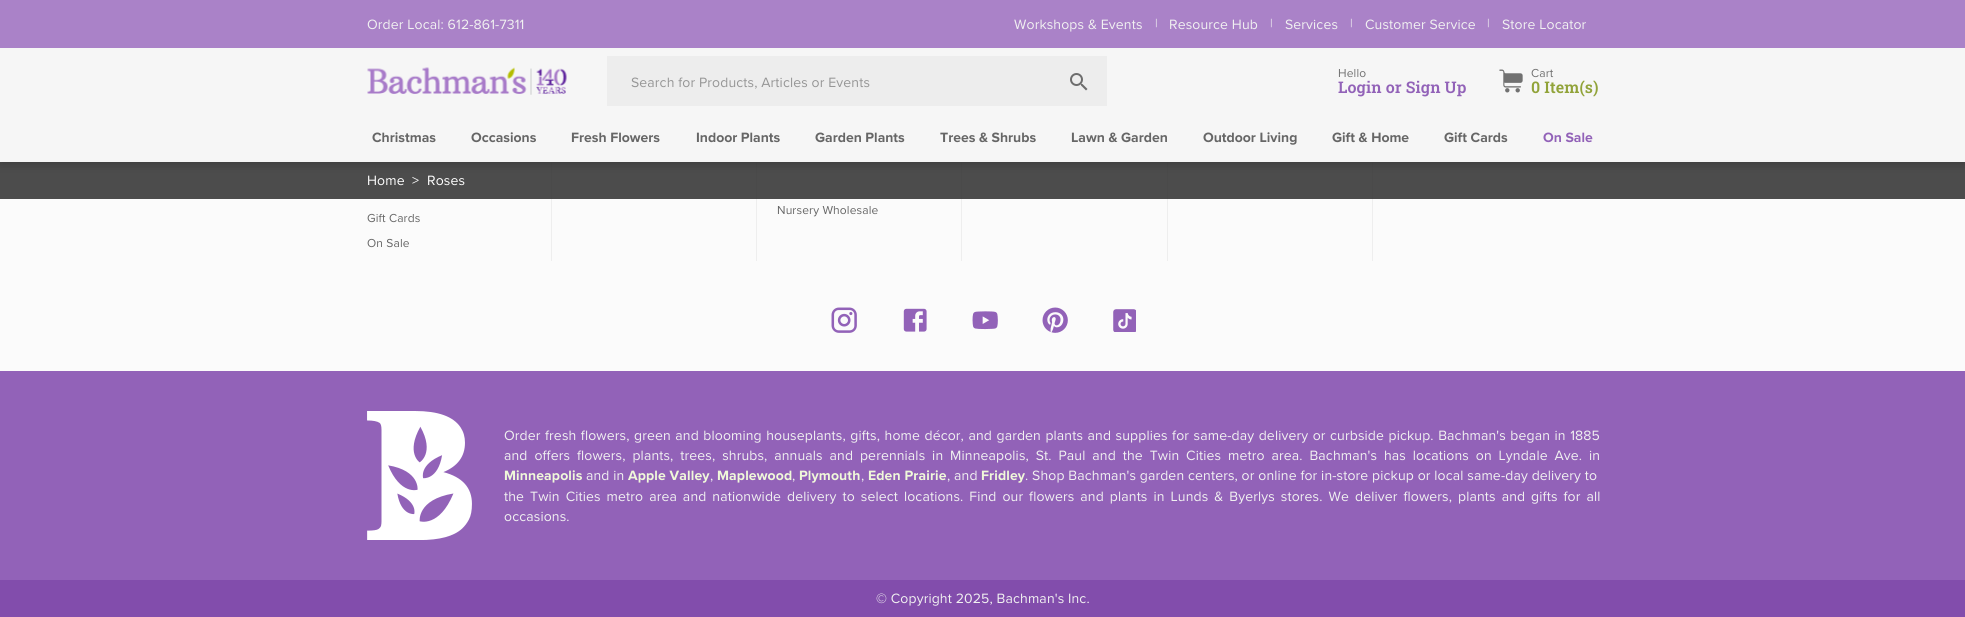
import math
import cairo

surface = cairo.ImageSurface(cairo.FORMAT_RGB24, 1965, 617)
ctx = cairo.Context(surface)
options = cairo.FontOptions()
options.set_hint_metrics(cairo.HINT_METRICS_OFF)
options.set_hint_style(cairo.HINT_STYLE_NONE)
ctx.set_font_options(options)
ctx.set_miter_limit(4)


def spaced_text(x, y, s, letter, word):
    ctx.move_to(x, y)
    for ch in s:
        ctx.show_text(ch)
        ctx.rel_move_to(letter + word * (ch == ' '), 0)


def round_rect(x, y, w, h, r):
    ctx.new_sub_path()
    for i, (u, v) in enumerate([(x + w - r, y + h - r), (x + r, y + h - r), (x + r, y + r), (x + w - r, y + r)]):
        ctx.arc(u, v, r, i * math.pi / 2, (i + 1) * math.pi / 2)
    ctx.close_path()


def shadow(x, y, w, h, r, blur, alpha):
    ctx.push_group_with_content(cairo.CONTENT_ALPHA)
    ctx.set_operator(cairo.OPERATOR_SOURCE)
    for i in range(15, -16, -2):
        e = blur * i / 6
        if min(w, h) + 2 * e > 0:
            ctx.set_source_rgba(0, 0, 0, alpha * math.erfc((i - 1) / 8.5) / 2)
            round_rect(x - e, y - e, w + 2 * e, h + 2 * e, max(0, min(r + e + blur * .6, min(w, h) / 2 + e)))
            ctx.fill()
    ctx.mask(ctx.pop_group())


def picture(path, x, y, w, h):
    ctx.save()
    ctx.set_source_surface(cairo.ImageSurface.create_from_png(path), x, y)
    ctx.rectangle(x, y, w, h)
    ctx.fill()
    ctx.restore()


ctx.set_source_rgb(0.984, 0.984, 0.984)
ctx.paint()
ctx.set_source_rgb(0.933, 0.933, 0.933)
ctx.rectangle(756, 162, 1, 99)
ctx.fill()
ctx.rectangle(961, 162, 1, 99)
ctx.fill()
ctx.rectangle(1167, 162, 1, 99)
ctx.fill()
ctx.rectangle(1372, 162, 1, 99)
ctx.fill()
ctx.rectangle(551, 162, 1, 99)
ctx.fill()
ctx.set_source_rgba(0.129, 0.129, 0.129, 0.8)
ctx.rectangle(0, 162, 1965, 37)
ctx.fill()
ctx.set_source_rgb(0, 0, 0)
shadow(0, 2, 1965, 162, 0, 5, 0.2)
ctx.set_source_rgb(0.667, 0.51, 0.784)
ctx.rectangle(0, 0, 1965, 48)
ctx.fill()
ctx.select_font_face("Proxima Nova")
ctx.set_font_size(14)
ctx.set_source_rgb(0.945, 0.945, 0.945)
spaced_text(367, 29, "Order Local: 612-861-7311", 0.13, 0)
spaced_text(1014, 29, "Workshops & Events", 0.13, 0)
ctx.set_font_size(12)
spaced_text(1155, 27, "|", 0.13, 0)
ctx.set_font_size(14)
spaced_text(1169, 29, "Resource Hub", 0.13, 0)
ctx.set_font_size(12)
spaced_text(1270, 27, "|", 0.13, 0)
ctx.set_font_size(14)
spaced_text(1285, 29, "Services", 0.13, 0)
ctx.set_font_size(12)
spaced_text(1350, 27, "|", 0.13, 0)
ctx.set_font_size(14)
spaced_text(1365, 29, "Customer Service", 0.13, 0)
ctx.set_font_size(12)
spaced_text(1487, 27, "|", 0.13, 0)
ctx.set_font_size(14)
spaced_text(1502, 29, "Store Locator", 0.13, 0)
ctx.set_source_rgb(0.961, 0.961, 0.961)
ctx.rectangle(0, 48, 1965, 114)
ctx.fill()
picture("img1.png", 367, 67, 200, 28)
ctx.set_source_rgb(0.929, 0.929, 0.929)
ctx.rectangle(607, 56, 500, 50)
ctx.fill()
ctx.set_source_rgb(0.588, 0.588, 0.588)
spaced_text(631, 87, "Search for Products, Articles or Events", 0.13, 0)
picture("img2.png", 1070, 73, 18, 18)
ctx.set_font_size(12)
ctx.set_source_rgb(0.443, 0.443, 0.443)
spaced_text(1338, 77, "Hello", 0.13, 0)
ctx.select_font_face("Roboto Slab SemiBold")
ctx.set_font_size(16)
ctx.set_source_rgb(0.573, 0.384, 0.722)
spaced_text(1338, 93, "Login or Sign Up", 0.1, 0)
picture("img3.png", 1499, 69, 24, 24)
ctx.select_font_face("Proxima Nova")
ctx.set_font_size(12)
ctx.set_source_rgb(0.443, 0.443, 0.443)
spaced_text(1531, 77, "Cart", 0.13, 0)
ctx.select_font_face("Roboto Slab SemiBold")
ctx.set_font_size(16)
ctx.set_source_rgb(0.569, 0.639, 0.224)
spaced_text(1531, 93, "0 Item(s)", 0.1, 0)
ctx.select_font_face("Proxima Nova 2")
ctx.set_font_size(14)
ctx.set_source_rgb(0.4, 0.4, 0.4)
ctx.move_to(372, 142)
ctx.show_text("Christmas")
ctx.move_to(471, 142)
ctx.show_text("Occasions")
ctx.move_to(571, 142)
ctx.show_text("Fresh Flowers")
ctx.move_to(696, 142)
ctx.show_text("Indoor Plants")
ctx.move_to(815, 142)
ctx.show_text("Garden Plants")
ctx.move_to(940, 142)
ctx.show_text("Trees & Shrubs")
ctx.move_to(1071, 142)
ctx.show_text("Lawn & Garden")
ctx.move_to(1203, 142)
ctx.show_text("Outdoor Living")
ctx.move_to(1332, 142)
ctx.show_text("Gift & Home")
ctx.move_to(1444, 142)
ctx.show_text("Gift Cards")
ctx.set_source_rgb(0.573, 0.384, 0.722)
ctx.move_to(1543, 142)
ctx.show_text("On Sale")
ctx.select_font_face("Proxima Nova")
ctx.set_source_rgb(1, 1, 1)
spaced_text(367, 185, "Home", 0.13, 0)
spaced_text(412, 185, ">", 0.13, 0)
spaced_text(427, 185, "Roses", 0.13, 0)
ctx.set_font_size(12)
ctx.set_source_rgb(0.4, 0.4, 0.4)
spaced_text(777, 214, "Nursery Wholesale", 0.13, 0)
spaced_text(367, 222, "Gift Cards", 0.13, 0)
spaced_text(367, 247, "On Sale", 0.13, 0)
picture("img4.png", 831, 307, 26, 26)
picture("img5.png", 903, 308, 24, 24)
picture("img6.png", 972, 311, 26, 19)
picture("img7.png", 1042, 307, 26, 26)
picture("img8.png", 1113, 309, 23, 23)
ctx.set_source_rgb(0.573, 0.384, 0.722)
ctx.rectangle(0, 371, 1965, 209)
ctx.fill()
picture("img9.png", 367, 411, 105, 129)
ctx.set_font_size(14)
ctx.set_source_rgb(0.945, 0.945, 0.945)
spaced_text(504, 440, "Order fresh flowers, green and blooming houseplants, gifts, home décor, and garden plants and supplies for same-day delivery or curbside pickup. Bachman's began in 1885", 0.13, 0.75)
spaced_text(504, 460, "and offers flowers, plants, trees, shrubs, annuals and perennials in Minneapolis, St. Paul and the Twin Cities metro area. Bachman's has locations on Lyndale Ave. in", 0.13, 3.1)
ctx.select_font_face("Proxima Nova 2")
ctx.set_source_rgb(0.941, 0.973, 0.855)
spaced_text(504, 480, "Minneapolis", 0.13, 0)
ctx.select_font_face("Proxima Nova")
ctx.set_source_rgb(0.945, 0.945, 0.945)
spaced_text(586, 480, "and in", 0.13, 0)
ctx.select_font_face("Proxima Nova 2")
ctx.set_source_rgb(0.941, 0.973, 0.855)
spaced_text(628, 480, "Apple Valley", 0.13, 0)
ctx.select_font_face("Proxima Nova")
ctx.set_source_rgb(0.945, 0.945, 0.945)
spaced_text(710, 480, ",", 0.13, 0)
ctx.select_font_face("Proxima Nova 2")
ctx.set_source_rgb(0.941, 0.973, 0.855)
spaced_text(717, 480, "Maplewood", 0.13, 0)
ctx.select_font_face("Proxima Nova")
ctx.set_source_rgb(0.945, 0.945, 0.945)
spaced_text(792, 480, ",", 0.13, 0)
ctx.select_font_face("Proxima Nova 2")
ctx.set_source_rgb(0.941, 0.973, 0.855)
spaced_text(799, 480, "Plymouth", 0.13, 0)
ctx.select_font_face("Proxima Nova")
ctx.set_source_rgb(0.945, 0.945, 0.945)
spaced_text(861, 480, ",", 0.13, 0)
ctx.select_font_face("Proxima Nova 2")
ctx.set_source_rgb(0.941, 0.973, 0.855)
spaced_text(868, 480, "Eden Prairie", 0.13, 0)
ctx.select_font_face("Proxima Nova")
ctx.set_source_rgb(0.945, 0.945, 0.945)
spaced_text(947, 480, ", and", 0.13, 0)
ctx.select_font_face("Proxima Nova 2")
ctx.set_source_rgb(0.941, 0.973, 0.855)
spaced_text(981, 480, "Fridley", 0.13, 0)
ctx.select_font_face("Proxima Nova")
ctx.set_source_rgb(0.945, 0.945, 0.945)
spaced_text(1025, 480, ". Shop Bachman's garden centers, or online for in-store pickup or local same-day delivery to", 0.13, 0)
spaced_text(504, 501, "the Twin Cities metro area and nationwide delivery to select locations. Find our flowers and plants in Lunds & Byerlys stores. We deliver flowers, plants and gifts for all", 0.13, 2.2)
spaced_text(504, 521, "occasions.", 0.13, 0)
ctx.set_source_rgb(0.51, 0.302, 0.675)
ctx.rectangle(0, 580, 1965, 37)
ctx.fill()
ctx.set_source_rgb(0.945, 0.945, 0.945)
spaced_text(876, 603, "© Copyright 2025, Bachman's Inc.", 0.13, 0)
surface.write_to_png("page.png")
